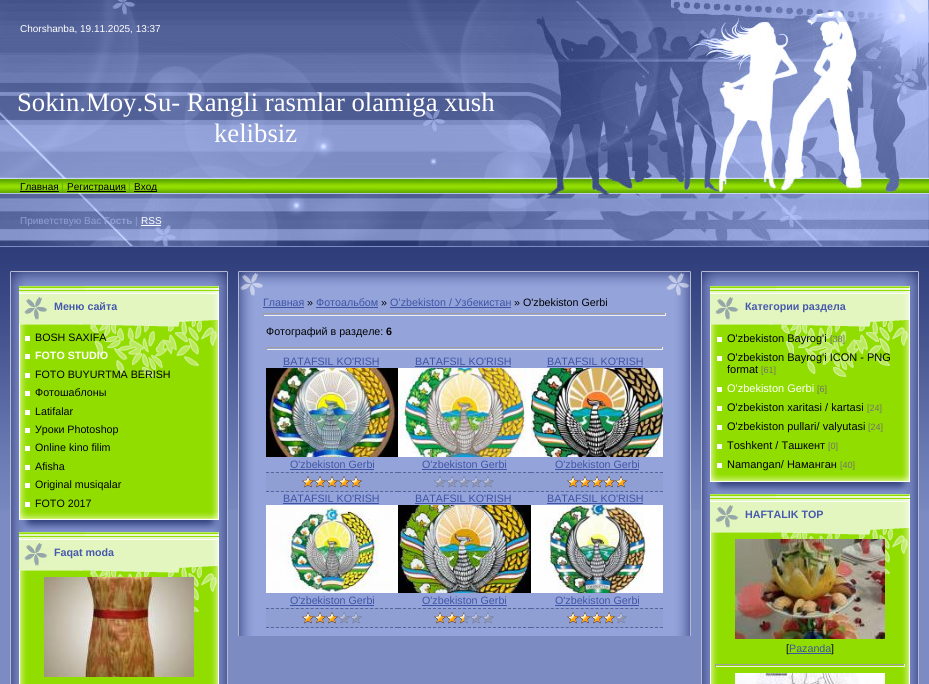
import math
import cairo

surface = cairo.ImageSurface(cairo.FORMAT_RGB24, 929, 684)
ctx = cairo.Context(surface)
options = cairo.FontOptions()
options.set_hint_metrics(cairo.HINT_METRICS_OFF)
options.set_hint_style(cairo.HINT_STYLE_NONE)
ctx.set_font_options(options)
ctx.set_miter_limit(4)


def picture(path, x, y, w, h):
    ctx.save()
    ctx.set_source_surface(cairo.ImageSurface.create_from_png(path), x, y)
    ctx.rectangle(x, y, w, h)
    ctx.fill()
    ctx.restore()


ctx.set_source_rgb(0.486, 0.549, 0.765)
ctx.paint()
picture("img1.png", 0, 247, 929, 263)
picture("img2.png", 0, 0, 511, 57)
ctx.select_font_face("Liberation Sans")
ctx.set_font_size(10)
ctx.set_source_rgb(1, 1, 1)
ctx.move_to(20, 32)
ctx.show_text("Chorshanba, 19.11.2025, 13:37")
picture("img3.png", 511, 0, 418, 247)
picture("img4.png", 0, 57, 511, 121)
ctx.select_font_face("Liberation Serif")
ctx.set_font_size(26.7)
ctx.move_to(17, 111)
ctx.show_text("Sokin.Moy.Su- Rangli rasmlar olamiga xush")
ctx.move_to(214, 142)
ctx.show_text("kelibsiz")
picture("img5.png", 0, 178, 511, 16)
ctx.select_font_face("Liberation Sans")
ctx.set_font_size(10)
ctx.set_source_rgb(0, 0, 0)
ctx.move_to(20, 190)
ctx.show_text("Главная")
ctx.rectangle(20, 191, 39, 1)
ctx.fill()
ctx.set_source_rgb(0.38, 0.659, 0)
ctx.move_to(61, 190)
ctx.show_text("|")
ctx.set_source_rgb(0, 0, 0)
ctx.rectangle(67, 191, 59, 1)
ctx.fill()
ctx.move_to(67, 190)
ctx.show_text("Регистрация")
ctx.set_source_rgb(0.38, 0.659, 0)
ctx.move_to(128, 190)
ctx.show_text("|")
ctx.set_source_rgb(0, 0, 0)
ctx.rectangle(134, 191, 23, 1)
ctx.fill()
ctx.move_to(134, 190)
ctx.show_text("Вход")
picture("img6.png", 0, 194, 511, 53)
ctx.set_source_rgb(0.565, 0.627, 0.843)
ctx.move_to(20, 224)
ctx.show_text("Приветствую Вас")
ctx.select_font_face("Liberation Sans", cairo.FONT_SLANT_NORMAL, cairo.FONT_WEIGHT_BOLD)
ctx.move_to(104, 224)
ctx.show_text("Гость")
ctx.select_font_face("Liberation Sans")
ctx.move_to(135, 224)
ctx.show_text("|")
ctx.set_source_rgb(1, 1, 1)
ctx.move_to(141, 224)
ctx.show_text("RSS")
ctx.rectangle(141, 225, 20, 1)
ctx.fill()
picture("img7.png", 10, 285, 218, 399)
picture("img8.png", 10, 271, 218, 14)
picture("img9.png", 19, 326, 200, 186)
picture("img10.png", 19, 286, 200, 40)
ctx.select_font_face("Liberation Sans", cairo.FONT_SLANT_NORMAL, cairo.FONT_WEIGHT_BOLD)
ctx.set_font_size(10.7)
ctx.set_source_rgb(0.275, 0.349, 0.682)
ctx.move_to(54, 310)
ctx.show_text("Меню сайта")
picture("img11.png", 19, 512, 200, 20)
ctx.set_source_rgb(1, 1, 1)
ctx.rectangle(25, 336, 5, 5)
ctx.fill()
ctx.select_font_face("Liberation Sans")
ctx.set_source_rgb(0, 0, 0)
ctx.move_to(35, 341)
ctx.show_text("BOSH SAXIFA")
ctx.set_source_rgb(1, 1, 1)
ctx.rectangle(25, 354, 5, 5)
ctx.fill()
ctx.select_font_face("Liberation Sans", cairo.FONT_SLANT_NORMAL, cairo.FONT_WEIGHT_BOLD)
ctx.move_to(35, 359)
ctx.show_text("FOTO STUDIO")
ctx.rectangle(25, 373, 5, 5)
ctx.fill()
ctx.select_font_face("Liberation Sans")
ctx.set_source_rgb(0, 0, 0)
ctx.move_to(35, 378)
ctx.show_text("FOTO BUYURTMA BERISH")
ctx.set_source_rgb(1, 1, 1)
ctx.rectangle(25, 391, 5, 5)
ctx.fill()
ctx.set_source_rgb(0, 0, 0)
ctx.move_to(35, 396)
ctx.show_text("Фотошаблоны")
ctx.set_source_rgb(1, 1, 1)
ctx.rectangle(25, 410, 5, 5)
ctx.fill()
ctx.set_source_rgb(0, 0, 0)
ctx.move_to(35, 415)
ctx.show_text("Latifalar")
ctx.set_source_rgb(1, 1, 1)
ctx.rectangle(25, 428, 5, 5)
ctx.fill()
ctx.set_source_rgb(0, 0, 0)
ctx.move_to(35, 433)
ctx.show_text("Уроки Photoshop")
ctx.set_source_rgb(1, 1, 1)
ctx.rectangle(25, 446, 5, 5)
ctx.fill()
ctx.set_source_rgb(0, 0, 0)
ctx.move_to(35, 451)
ctx.show_text("Online kino filim")
ctx.set_source_rgb(1, 1, 1)
ctx.rectangle(25, 465, 5, 5)
ctx.fill()
ctx.set_source_rgb(0, 0, 0)
ctx.move_to(35, 470)
ctx.show_text("Afisha")
ctx.set_source_rgb(1, 1, 1)
ctx.rectangle(25, 483, 5, 5)
ctx.fill()
ctx.set_source_rgb(0, 0, 0)
ctx.move_to(35, 488)
ctx.show_text("Original musiqalar")
ctx.set_source_rgb(1, 1, 1)
ctx.rectangle(25, 502, 5, 5)
ctx.fill()
ctx.set_source_rgb(0, 0, 0)
ctx.move_to(35, 507)
ctx.show_text("FOTO 2017")
picture("img12.png", 19, 572, 200, 112)
picture("img10.png", 19, 532, 200, 40)
ctx.select_font_face("Liberation Sans", cairo.FONT_SLANT_NORMAL, cairo.FONT_WEIGHT_BOLD)
ctx.set_source_rgb(0.275, 0.349, 0.682)
ctx.move_to(54, 556)
ctx.show_text("Faqat moda")
picture("img13.png", 44, 577, 150, 100)
picture("img14.png", 238, 271, 25, 25)
picture("img15.png", 263, 271, 403, 25)
picture("img16.png", 666, 271, 25, 25)
picture("img17.png", 238, 296, 25, 340)
ctx.set_source_rgb(0.58, 0.643, 0.859)
ctx.rectangle(263, 296, 403, 340)
ctx.fill()
ctx.select_font_face("Liberation Sans")
ctx.set_source_rgb(0.247, 0.325, 0.643)
ctx.move_to(263, 306)
ctx.show_text("Главная")
ctx.rectangle(263, 307, 41, 1)
ctx.fill()
ctx.set_source_rgb(0, 0, 0)
ctx.move_to(307, 306)
ctx.show_text("»")
ctx.set_source_rgb(0.247, 0.325, 0.643)
ctx.move_to(316, 306)
ctx.show_text("Фотоальбом")
ctx.rectangle(316, 307, 62, 1)
ctx.fill()
ctx.set_source_rgb(0, 0, 0)
ctx.move_to(381, 306)
ctx.show_text("»")
ctx.set_source_rgb(0.247, 0.325, 0.643)
ctx.move_to(390, 306)
ctx.show_text("Oʻzbekiston / Узбекистан")
ctx.rectangle(390, 307, 121, 1)
ctx.fill()
ctx.set_source_rgb(0, 0, 0)
ctx.move_to(514, 306)
ctx.show_text("» O'zbekiston Gerbi")
ctx.set_source_rgb(0.624, 0.624, 0.624)
ctx.rectangle(263, 313, 403, 1)
ctx.fill()
ctx.set_source_rgb(0.933, 0.933, 0.933)
ctx.rectangle(665, 313, 1, 3)
ctx.fill()
ctx.rectangle(263, 315, 403, 1)
ctx.fill()
ctx.set_source_rgb(0.624, 0.624, 0.624)
ctx.rectangle(263, 313, 1, 3)
ctx.fill()
ctx.set_source_rgb(0, 0, 0)
ctx.move_to(266, 335)
ctx.show_text("Фотографий в разделе:")
ctx.select_font_face("Liberation Sans", cairo.FONT_SLANT_NORMAL, cairo.FONT_WEIGHT_BOLD)
ctx.move_to(386, 335)
ctx.show_text("6")
ctx.set_source_rgb(0.624, 0.624, 0.624)
ctx.rectangle(266, 347, 397, 1)
ctx.fill()
ctx.set_source_rgb(0.933, 0.933, 0.933)
ctx.rectangle(662, 347, 1, 3)
ctx.fill()
ctx.rectangle(266, 349, 397, 1)
ctx.fill()
ctx.set_source_rgb(0.624, 0.624, 0.624)
ctx.rectangle(266, 347, 1, 3)
ctx.fill()
ctx.select_font_face("Liberation Sans")
ctx.set_source_rgb(0.247, 0.325, 0.643)
ctx.move_to(283, 365)
ctx.show_text("BATAFSIL KO'RISH")
ctx.rectangle(283, 366, 96, 1)
ctx.fill()
picture("img18.png", 266, 368, 132, 89)
ctx.move_to(290, 468)
ctx.show_text("O'zbekiston Gerbi")
ctx.rectangle(290, 469, 84, 1)
ctx.fill()
ctx.set_source_rgb(0.561, 0.624, 0.831)
ctx.rectangle(266, 472, 397, 20)
ctx.fill()
ctx.new_path()
ctx.move_to(266, 472.5)
ctx.line_to(398, 472.5)
ctx.set_source_rgb(0.333, 0.392, 0.62)
ctx.set_line_width(1)
ctx.set_dash([3, 1.96])
ctx.stroke()
ctx.new_path()
ctx.move_to(266, 491.5)
ctx.line_to(398, 491.5)
ctx.stroke()
picture("img19.png", 302, 476, 60, 12)
picture("img20.png", 302, 476, 60, 12)
ctx.set_source_rgb(0.247, 0.325, 0.643)
ctx.move_to(415, 365)
ctx.show_text("BATAFSIL KO'RISH")
ctx.rectangle(415, 366, 96, 1)
ctx.fill()
picture("img21.png", 398, 368, 133, 89)
ctx.move_to(422, 468)
ctx.show_text("O'zbekiston Gerbi")
ctx.rectangle(422, 469, 85, 1)
ctx.fill()
ctx.new_path()
ctx.move_to(398, 472.5)
ctx.line_to(531, 472.5)
ctx.set_source_rgb(0.333, 0.392, 0.62)
ctx.set_dash([3, 2])
ctx.stroke()
ctx.new_path()
ctx.move_to(398, 491.5)
ctx.line_to(531, 491.5)
ctx.stroke()
picture("img19.png", 434, 476, 60, 12)
ctx.set_source_rgb(0.247, 0.325, 0.643)
ctx.move_to(547, 365)
ctx.show_text("BATAFSIL KO'RISH")
ctx.rectangle(547, 366, 96, 1)
ctx.fill()
picture("img22.png", 531, 368, 132, 89)
ctx.move_to(555, 468)
ctx.show_text("O'zbekiston Gerbi")
ctx.rectangle(555, 469, 84, 1)
ctx.fill()
ctx.new_path()
ctx.move_to(531, 472.5)
ctx.line_to(663, 472.5)
ctx.set_source_rgb(0.333, 0.392, 0.62)
ctx.set_dash([3, 1.96])
ctx.stroke()
ctx.new_path()
ctx.move_to(531, 491.5)
ctx.line_to(663, 491.5)
ctx.stroke()
picture("img19.png", 567, 476, 60, 12)
picture("img20.png", 567, 476, 60, 12)
ctx.set_source_rgb(0.247, 0.325, 0.643)
ctx.move_to(283, 502)
ctx.show_text("BATAFSIL KO'RISH")
ctx.rectangle(283, 503, 96, 1)
ctx.fill()
picture("img23.png", 266, 505, 132, 88)
ctx.move_to(290, 604)
ctx.show_text("O'zbekiston Gerbi")
ctx.rectangle(290, 605, 84, 1)
ctx.fill()
ctx.set_source_rgb(0.561, 0.624, 0.831)
ctx.rectangle(266, 608, 397, 20)
ctx.fill()
ctx.new_path()
ctx.move_to(266, 608.5)
ctx.line_to(398, 608.5)
ctx.set_source_rgb(0.333, 0.392, 0.62)
ctx.stroke()
ctx.new_path()
ctx.move_to(266, 627.5)
ctx.line_to(398, 627.5)
ctx.stroke()
picture("img19.png", 302, 612, 60, 12)
picture("img24.png", 302, 612, 36, 12)
ctx.set_source_rgb(0.247, 0.325, 0.643)
ctx.move_to(415, 502)
ctx.show_text("BATAFSIL KO'RISH")
ctx.rectangle(415, 503, 96, 1)
ctx.fill()
picture("img25.png", 398, 505, 133, 88)
ctx.move_to(422, 604)
ctx.show_text("O'zbekiston Gerbi")
ctx.rectangle(422, 605, 85, 1)
ctx.fill()
ctx.new_path()
ctx.move_to(398, 608.5)
ctx.line_to(531, 608.5)
ctx.set_source_rgb(0.333, 0.392, 0.62)
ctx.set_dash([3, 2])
ctx.stroke()
ctx.new_path()
ctx.move_to(398, 627.5)
ctx.line_to(531, 627.5)
ctx.stroke()
picture("img19.png", 434, 612, 60, 12)
picture("img26.png", 434, 612, 30, 12)
ctx.set_source_rgb(0.247, 0.325, 0.643)
ctx.move_to(547, 502)
ctx.show_text("BATAFSIL KO'RISH")
ctx.rectangle(547, 503, 96, 1)
ctx.fill()
picture("img27.png", 531, 505, 132, 88)
ctx.move_to(555, 604)
ctx.show_text("O'zbekiston Gerbi")
ctx.rectangle(555, 605, 84, 1)
ctx.fill()
ctx.new_path()
ctx.move_to(531, 608.5)
ctx.line_to(663, 608.5)
ctx.set_source_rgb(0.333, 0.392, 0.62)
ctx.set_dash([3, 1.96])
ctx.stroke()
ctx.new_path()
ctx.move_to(531, 627.5)
ctx.line_to(663, 627.5)
ctx.stroke()
picture("img19.png", 567, 612, 60, 12)
picture("img28.png", 567, 612, 48, 12)
picture("img29.png", 666, 296, 25, 340)
picture("img7.png", 701, 285, 218, 399)
picture("img8.png", 701, 271, 218, 14)
picture("img30.png", 710, 326, 200, 148)
picture("img10.png", 710, 286, 200, 40)
ctx.select_font_face("Liberation Sans", cairo.FONT_SLANT_NORMAL, cairo.FONT_WEIGHT_BOLD)
ctx.set_source_rgb(0.275, 0.349, 0.682)
ctx.move_to(745, 310)
ctx.show_text("Категории раздела")
picture("img11.png", 710, 474, 200, 20)
ctx.set_source_rgb(1, 1, 1)
ctx.rectangle(717, 337, 5, 5)
ctx.fill()
ctx.select_font_face("Liberation Sans")
ctx.set_font_size(11)
ctx.set_source_rgb(0, 0, 0)
ctx.move_to(727, 342)
ctx.show_text("O'zbekiston Bayrog'i")
ctx.set_font_size(9)
ctx.set_source_rgb(0.439, 0.439, 0.439)
ctx.move_to(830, 342)
ctx.show_text("[38]")
ctx.set_source_rgb(1, 1, 1)
ctx.rectangle(717, 356, 5, 5)
ctx.fill()
ctx.set_font_size(11)
ctx.set_source_rgb(0, 0, 0)
ctx.move_to(727, 361)
ctx.show_text("O'zbekiston Bayrog'i ICON - PNG")
ctx.move_to(727, 373)
ctx.show_text("format")
ctx.set_font_size(9)
ctx.set_source_rgb(0.439, 0.439, 0.439)
ctx.move_to(761, 373)
ctx.show_text("[61]")
ctx.set_source_rgb(1, 1, 1)
ctx.rectangle(717, 387, 5, 5)
ctx.fill()
ctx.set_font_size(11)
ctx.move_to(727, 392)
ctx.show_text("O'zbekiston Gerbi")
ctx.set_font_size(9)
ctx.set_source_rgb(0.439, 0.439, 0.439)
ctx.move_to(817, 392)
ctx.show_text("[6]")
ctx.set_source_rgb(1, 1, 1)
ctx.rectangle(717, 406, 5, 5)
ctx.fill()
ctx.set_font_size(11)
ctx.set_source_rgb(0, 0, 0)
ctx.move_to(727, 411)
ctx.show_text("O'zbekiston xaritasi / kartasi")
ctx.set_font_size(9)
ctx.set_source_rgb(0.439, 0.439, 0.439)
ctx.move_to(867, 411)
ctx.show_text("[24]")
ctx.set_source_rgb(1, 1, 1)
ctx.rectangle(717, 425, 5, 5)
ctx.fill()
ctx.set_font_size(11)
ctx.set_source_rgb(0, 0, 0)
ctx.move_to(727, 430)
ctx.show_text("O'zbekiston pullari/ valyutasi")
ctx.set_font_size(9)
ctx.set_source_rgb(0.439, 0.439, 0.439)
ctx.move_to(868, 430)
ctx.show_text("[24]")
ctx.set_source_rgb(1, 1, 1)
ctx.rectangle(717, 444, 5, 5)
ctx.fill()
ctx.set_font_size(11)
ctx.set_source_rgb(0, 0, 0)
ctx.move_to(727, 449)
ctx.show_text("Toshkent / Ташкент")
ctx.set_font_size(9)
ctx.set_source_rgb(0.439, 0.439, 0.439)
ctx.move_to(828, 449)
ctx.show_text("[0]")
ctx.set_source_rgb(1, 1, 1)
ctx.rectangle(717, 463, 5, 5)
ctx.fill()
ctx.set_font_size(11)
ctx.set_source_rgb(0, 0, 0)
ctx.move_to(727, 468)
ctx.show_text("Namangan/ Наманган")
ctx.set_font_size(9)
ctx.set_source_rgb(0.439, 0.439, 0.439)
ctx.move_to(840, 468)
ctx.show_text("[40]")
picture("img31.png", 710, 534, 200, 150)
picture("img10.png", 710, 494, 200, 40)
ctx.select_font_face("Liberation Sans", cairo.FONT_SLANT_NORMAL, cairo.FONT_WEIGHT_BOLD)
ctx.set_font_size(10.7)
ctx.set_source_rgb(0.275, 0.349, 0.682)
ctx.move_to(745, 518)
ctx.show_text("HAFTALIK TOP")
picture("img32.png", 735, 539, 150, 100)
ctx.select_font_face("Liberation Sans")
ctx.set_source_rgb(0, 0, 0)
ctx.move_to(786, 652)
ctx.show_text("[")
ctx.set_source_rgb(0.247, 0.325, 0.643)
ctx.move_to(789, 652)
ctx.show_text("Pazanda")
ctx.rectangle(789, 653, 42, 1)
ctx.fill()
ctx.set_source_rgb(0, 0, 0)
ctx.move_to(831, 652)
ctx.show_text("]")
ctx.set_source_rgb(0.624, 0.624, 0.624)
ctx.rectangle(715, 664, 190, 1)
ctx.fill()
ctx.set_source_rgb(0.933, 0.933, 0.933)
ctx.rectangle(904, 664, 1, 3)
ctx.fill()
ctx.rectangle(715, 666, 190, 1)
ctx.fill()
ctx.set_source_rgb(0.624, 0.624, 0.624)
ctx.rectangle(715, 664, 1, 3)
ctx.fill()
picture("img33.png", 735, 673, 150, 11)
surface.write_to_png("page.png")
